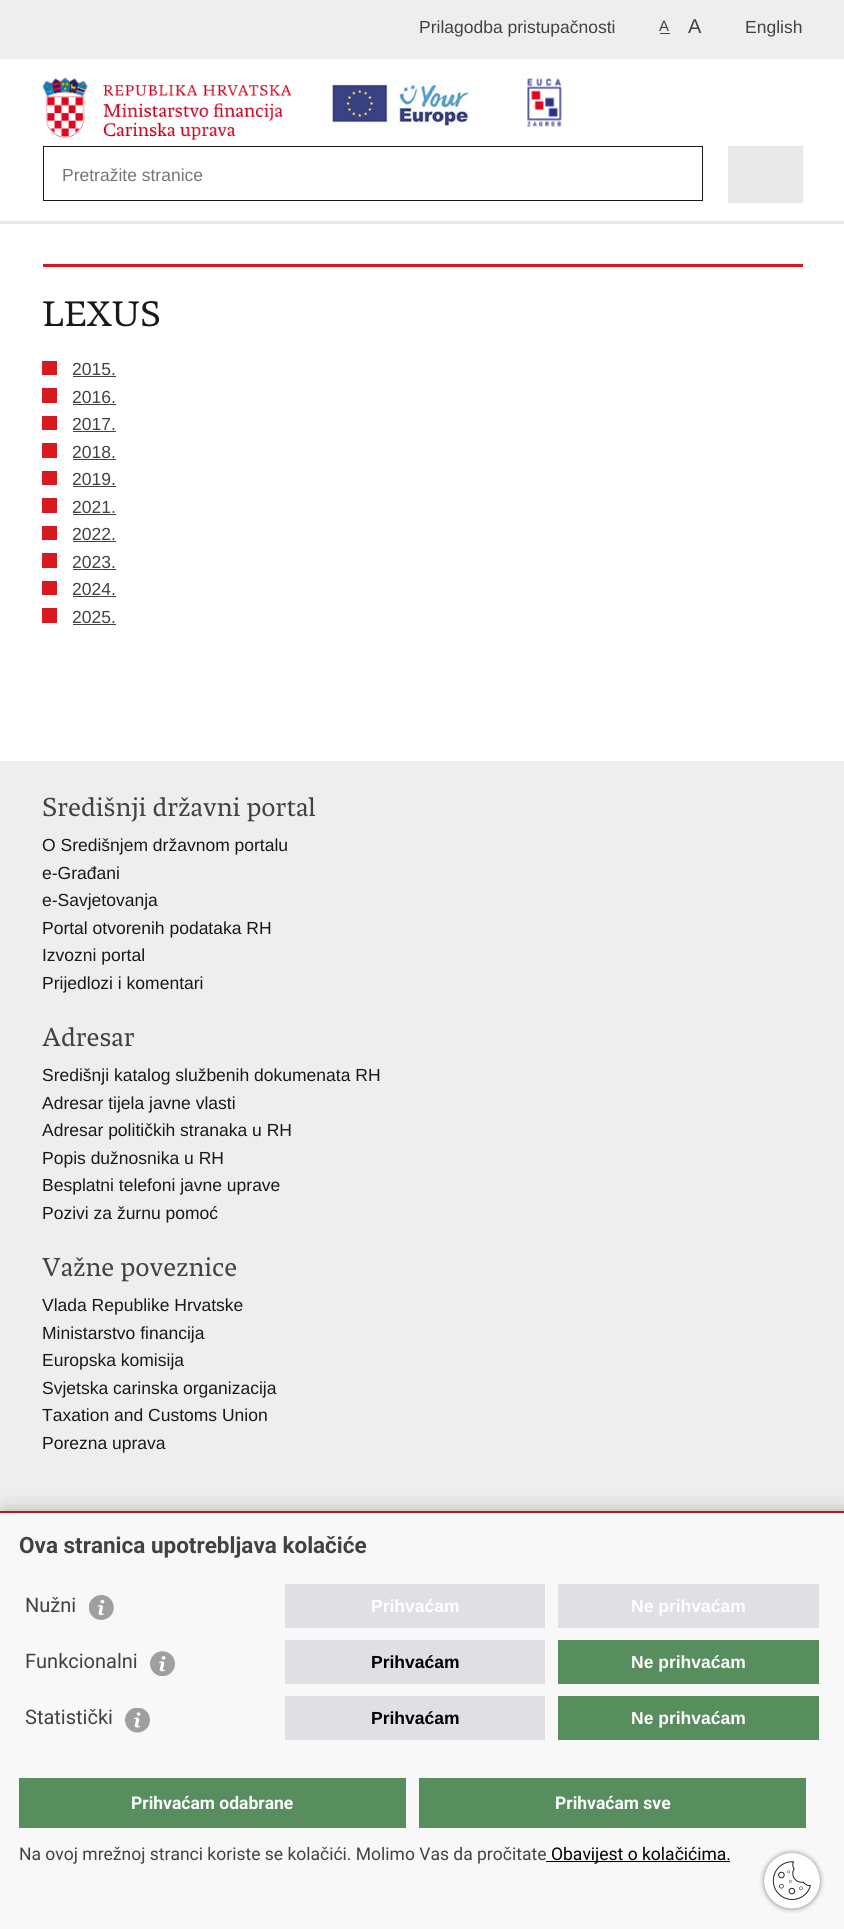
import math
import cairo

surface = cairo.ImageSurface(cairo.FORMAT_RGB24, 844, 1929)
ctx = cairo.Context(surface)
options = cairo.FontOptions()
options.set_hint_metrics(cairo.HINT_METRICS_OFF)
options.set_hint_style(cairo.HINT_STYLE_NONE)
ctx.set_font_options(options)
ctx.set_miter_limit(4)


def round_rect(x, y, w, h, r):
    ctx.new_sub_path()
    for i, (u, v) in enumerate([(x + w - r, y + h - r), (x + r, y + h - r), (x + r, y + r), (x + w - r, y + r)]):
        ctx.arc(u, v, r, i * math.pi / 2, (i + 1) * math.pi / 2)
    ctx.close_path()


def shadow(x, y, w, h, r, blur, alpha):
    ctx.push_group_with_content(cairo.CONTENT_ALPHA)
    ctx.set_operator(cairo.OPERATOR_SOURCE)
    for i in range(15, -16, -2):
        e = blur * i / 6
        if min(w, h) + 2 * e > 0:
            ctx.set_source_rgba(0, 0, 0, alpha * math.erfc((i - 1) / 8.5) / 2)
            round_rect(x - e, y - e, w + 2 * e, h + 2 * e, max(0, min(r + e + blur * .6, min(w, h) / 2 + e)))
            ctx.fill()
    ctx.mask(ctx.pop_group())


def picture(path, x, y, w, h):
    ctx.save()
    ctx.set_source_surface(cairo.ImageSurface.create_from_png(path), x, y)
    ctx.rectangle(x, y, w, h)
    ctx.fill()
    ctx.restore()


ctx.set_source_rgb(1, 1, 1)
ctx.paint()
ctx.set_source_rgb(0.914, 0.914, 0.914)
ctx.rectangle(0, 221, 844, 3)
ctx.fill()
ctx.set_source_rgb(0.933, 0.933, 0.933)
ctx.rectangle(0, 0, 844, 59)
ctx.fill()
ctx.select_font_face("Liberation Sans")
ctx.set_font_size(17.5)
ctx.set_source_rgb(0.259, 0.259, 0.259)
ctx.move_to(419, 33)
ctx.show_text("Prilagodba pristupačnosti")
ctx.set_font_size(15)
ctx.move_to(659, 31)
ctx.show_text("A")
ctx.rectangle(660, 33, 10, 1)
ctx.fill()
ctx.set_font_size(20)
ctx.move_to(688, 33)
ctx.show_text("A")
ctx.set_font_size(17.5)
ctx.move_to(745, 33)
ctx.show_text("English")
picture("img1.png", 42, 77, 250, 63)
picture("img2.png", 329, 81, 144, 46)
picture("img3.png", 527, 78, 35, 49)
ctx.rectangle(43.5, 146.5, 659, 54)
ctx.set_source_rgb(0.098, 0.098, 0.098)
ctx.set_line_width(1)
ctx.stroke()
ctx.set_source_rgb(0.459, 0.459, 0.459)
ctx.move_to(62, 181)
ctx.show_text("Pretražite stranice")
ctx.set_source_rgb(0.914, 0.914, 0.914)
ctx.rectangle(728, 146, 75, 57)
ctx.fill()
ctx.set_source_rgb(0.843, 0.098, 0.125)
ctx.rectangle(43, 264, 760, 3)
ctx.fill()
ctx.select_font_face("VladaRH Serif")
ctx.set_font_size(37.5)
ctx.set_source_rgb(0.098, 0.098, 0.098)
ctx.move_to(42, 326)
ctx.show_text("LEXUS")
ctx.set_source_rgb(0.847, 0.098, 0.125)
ctx.rectangle(42, 361, 15, 14)
ctx.fill()
ctx.select_font_face("Liberation Sans")
ctx.set_font_size(17.5)
ctx.set_source_rgb(0.259, 0.259, 0.259)
ctx.move_to(72, 375)
ctx.show_text("2015.")
ctx.rectangle(73, 376, 43, 1)
ctx.fill()
ctx.set_source_rgb(0.847, 0.098, 0.125)
ctx.rectangle(42, 388, 15, 15)
ctx.fill()
ctx.set_source_rgb(0.259, 0.259, 0.259)
ctx.move_to(72, 403)
ctx.show_text("2016.")
ctx.rectangle(73, 404, 43, 1)
ctx.fill()
ctx.set_source_rgb(0.847, 0.098, 0.125)
ctx.rectangle(42, 416, 15, 14)
ctx.fill()
ctx.set_source_rgb(0.259, 0.259, 0.259)
ctx.move_to(72, 430)
ctx.show_text("2017.")
ctx.rectangle(73, 431, 43, 1)
ctx.fill()
ctx.set_source_rgb(0.847, 0.098, 0.125)
ctx.rectangle(42, 443, 15, 15)
ctx.fill()
ctx.set_source_rgb(0.259, 0.259, 0.259)
ctx.move_to(72, 458)
ctx.show_text("2018.")
ctx.rectangle(73, 459, 43, 1)
ctx.fill()
ctx.set_source_rgb(0.847, 0.098, 0.125)
ctx.rectangle(42, 471, 15, 14)
ctx.fill()
ctx.set_source_rgb(0.259, 0.259, 0.259)
ctx.move_to(72, 485)
ctx.show_text("2019.")
ctx.rectangle(73, 486, 43, 1)
ctx.fill()
ctx.set_source_rgb(0.847, 0.098, 0.125)
ctx.rectangle(42, 498, 15, 15)
ctx.fill()
ctx.set_source_rgb(0.259, 0.259, 0.259)
ctx.move_to(72, 513)
ctx.show_text("2021.")
ctx.rectangle(73, 514, 43, 1)
ctx.fill()
ctx.set_source_rgb(0.847, 0.098, 0.125)
ctx.rectangle(42, 526, 15, 14)
ctx.fill()
ctx.set_source_rgb(0.259, 0.259, 0.259)
ctx.move_to(72, 540)
ctx.show_text("2022.")
ctx.rectangle(73, 541, 43, 1)
ctx.fill()
ctx.set_source_rgb(0.847, 0.098, 0.125)
ctx.rectangle(42, 553, 15, 15)
ctx.fill()
ctx.set_source_rgb(0.259, 0.259, 0.259)
ctx.move_to(72, 568)
ctx.show_text("2023.")
ctx.rectangle(73, 569, 43, 1)
ctx.fill()
ctx.set_source_rgb(0.847, 0.098, 0.125)
ctx.rectangle(42, 581, 15, 14)
ctx.fill()
ctx.set_source_rgb(0.259, 0.259, 0.259)
ctx.move_to(72, 595)
ctx.show_text("2024.")
ctx.rectangle(73, 596, 43, 1)
ctx.fill()
ctx.set_source_rgb(0.847, 0.098, 0.125)
ctx.rectangle(42, 608, 15, 15)
ctx.fill()
ctx.set_source_rgb(0.259, 0.259, 0.259)
ctx.move_to(72, 623)
ctx.show_text("2025.")
ctx.rectangle(73, 624, 43, 1)
ctx.fill()
ctx.set_source_rgb(0.933, 0.933, 0.933)
ctx.rectangle(0, 761, 844, 750)
ctx.fill()
ctx.select_font_face("VladaRH Serif")
ctx.set_font_size(27.5)
ctx.set_source_rgb(0.259, 0.259, 0.259)
ctx.move_to(42, 816)
ctx.show_text("Središnji državni portal")
ctx.select_font_face("Liberation Sans")
ctx.set_font_size(17.5)
ctx.set_source_rgb(0.098, 0.098, 0.098)
ctx.move_to(42, 851)
ctx.show_text("O Središnjem državnom portalu")
ctx.move_to(42, 879)
ctx.show_text("e-Građani")
ctx.move_to(42, 906)
ctx.show_text("e-Savjetovanja")
ctx.move_to(42, 934)
ctx.show_text("Portal otvorenih podataka RH")
ctx.move_to(42, 961)
ctx.show_text("Izvozni portal")
ctx.move_to(42, 989)
ctx.show_text("Prijedlozi i komentari")
ctx.select_font_face("VladaRH Serif")
ctx.set_font_size(27.5)
ctx.set_source_rgb(0.259, 0.259, 0.259)
ctx.move_to(42, 1046)
ctx.show_text("Adresar")
ctx.select_font_face("Liberation Sans")
ctx.set_font_size(17.5)
ctx.set_source_rgb(0.098, 0.098, 0.098)
ctx.move_to(42, 1081)
ctx.show_text("Središnji katalog službenih dokumenata RH")
ctx.move_to(42, 1109)
ctx.show_text("Adresar tijela javne vlasti")
ctx.move_to(42, 1136)
ctx.show_text("Adresar političkih stranaka u RH")
ctx.move_to(42, 1164)
ctx.show_text("Popis dužnosnika u RH")
ctx.move_to(42, 1191)
ctx.show_text("Besplatni telefoni javne uprave")
ctx.move_to(42, 1219)
ctx.show_text("Pozivi za žurnu pomoć")
ctx.select_font_face("VladaRH Serif")
ctx.set_font_size(27.5)
ctx.set_source_rgb(0.259, 0.259, 0.259)
ctx.move_to(42, 1276)
ctx.show_text("Važne poveznice")
ctx.select_font_face("Liberation Sans")
ctx.set_font_size(17.5)
ctx.set_source_rgb(0.098, 0.098, 0.098)
ctx.move_to(42, 1311)
ctx.show_text("Vlada Republike Hrvatske")
ctx.move_to(42, 1339)
ctx.show_text("Ministarstvo financija")
ctx.move_to(42, 1366)
ctx.show_text("Europska komisija")
ctx.move_to(42, 1394)
ctx.show_text("Svjetska carinska organizacija")
ctx.move_to(42, 1421)
ctx.show_text("Taxation and Customs Union")
ctx.move_to(42, 1449)
ctx.show_text("Porezna uprava")
ctx.set_source_rgb(0.843, 0.098, 0.125)
ctx.rectangle(0, 1511, 844, 2)
ctx.fill()
ctx.set_source_rgb(0, 0, 0)
shadow(4, 1519, 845, 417, 0, 12.5, 0.5)
ctx.set_source_rgb(0.969, 0.969, 0.969)
ctx.rectangle(0, 1513, 844, 416)
ctx.fill()
ctx.select_font_face("Roboto", cairo.FONT_SLANT_NORMAL, cairo.FONT_WEIGHT_BOLD)
ctx.set_font_size(22.5)
ctx.set_source_rgb(0.259, 0.259, 0.259)
ctx.move_to(19, 1553)
ctx.show_text("Ova stranica upotrebljava kolačiće")
ctx.select_font_face("Roboto")
ctx.set_font_size(20)
ctx.move_to(25, 1612)
ctx.show_text("Nužni")
picture("img4.png", 89, 1595, 25, 25)
ctx.set_source_rgb(0.878, 0.878, 0.894)
ctx.rectangle(285, 1584, 260, 44)
ctx.fill()
ctx.select_font_face("Liberation Sans", cairo.FONT_SLANT_NORMAL, cairo.FONT_WEIGHT_BOLD)
ctx.set_font_size(17.5)
ctx.set_source_rgb(1, 1, 1)
ctx.move_to(371, 1612)
ctx.show_text("Prihvaćam")
ctx.set_source_rgb(0.878, 0.878, 0.894)
ctx.rectangle(558, 1584, 261, 44)
ctx.fill()
ctx.set_source_rgb(1, 1, 1)
ctx.move_to(631, 1612)
ctx.show_text("Ne prihvaćam")
ctx.select_font_face("Roboto")
ctx.set_font_size(20)
ctx.set_source_rgb(0.259, 0.259, 0.259)
ctx.move_to(25, 1668)
ctx.show_text("Funkcionalni")
picture("img5.png", 150, 1651, 25, 25)
ctx.set_source_rgb(0.878, 0.878, 0.894)
ctx.rectangle(285, 1640, 260, 44)
ctx.fill()
ctx.select_font_face("Liberation Sans", cairo.FONT_SLANT_NORMAL, cairo.FONT_WEIGHT_BOLD)
ctx.set_font_size(17.5)
ctx.set_source_rgb(0, 0, 0)
ctx.move_to(371, 1668)
ctx.show_text("Prihvaćam")
ctx.set_source_rgb(0.345, 0.557, 0.369)
ctx.rectangle(558, 1640, 261, 44)
ctx.fill()
ctx.set_source_rgb(1, 1, 1)
ctx.move_to(631, 1668)
ctx.show_text("Ne prihvaćam")
ctx.select_font_face("Roboto")
ctx.set_font_size(20)
ctx.set_source_rgb(0.259, 0.259, 0.259)
ctx.move_to(25, 1724)
ctx.show_text("Statistički")
picture("img6.png", 125, 1708, 25, 25)
ctx.set_source_rgb(0.878, 0.878, 0.894)
ctx.rectangle(285, 1696, 260, 44)
ctx.fill()
ctx.select_font_face("Liberation Sans", cairo.FONT_SLANT_NORMAL, cairo.FONT_WEIGHT_BOLD)
ctx.set_font_size(17.5)
ctx.set_source_rgb(0, 0, 0)
ctx.move_to(371, 1724)
ctx.show_text("Prihvaćam")
ctx.set_source_rgb(0.345, 0.557, 0.369)
ctx.rectangle(558, 1696, 261, 44)
ctx.fill()
ctx.set_source_rgb(1, 1, 1)
ctx.move_to(631, 1724)
ctx.show_text("Ne prihvaćam")
ctx.set_source_rgb(0.345, 0.557, 0.369)
ctx.rectangle(19, 1778, 387, 50)
ctx.fill()
ctx.select_font_face("Roboto", cairo.FONT_SLANT_NORMAL, cairo.FONT_WEIGHT_BOLD)
ctx.set_source_rgb(1, 1, 1)
ctx.move_to(131, 1809)
ctx.show_text("Prihvaćam odabrane")
ctx.set_source_rgb(0.345, 0.557, 0.369)
ctx.rectangle(419, 1778, 387, 50)
ctx.fill()
ctx.set_source_rgb(1, 1, 1)
ctx.move_to(555, 1809)
ctx.show_text("Prihvaćam sve")
ctx.select_font_face("Roboto")
ctx.set_source_rgb(0.259, 0.259, 0.259)
ctx.move_to(19, 1860)
ctx.show_text("Na ovoj mrežnoj stranci koriste se kolačići. Molimo Vas da pročitate")
ctx.set_source_rgb(0, 0, 0)
ctx.rectangle(546, 1861, 184, 1)
ctx.fill()
ctx.move_to(551, 1860)
ctx.show_text("Obavijest o kolačićima.")
ctx.set_source_rgb(0.522, 0.522, 0.522)
shadow(764, 1853, 56, 56, 28, 2.5, 1)
picture("img7.png", 764, 1853, 56, 56)
surface.write_to_png("page.png")
